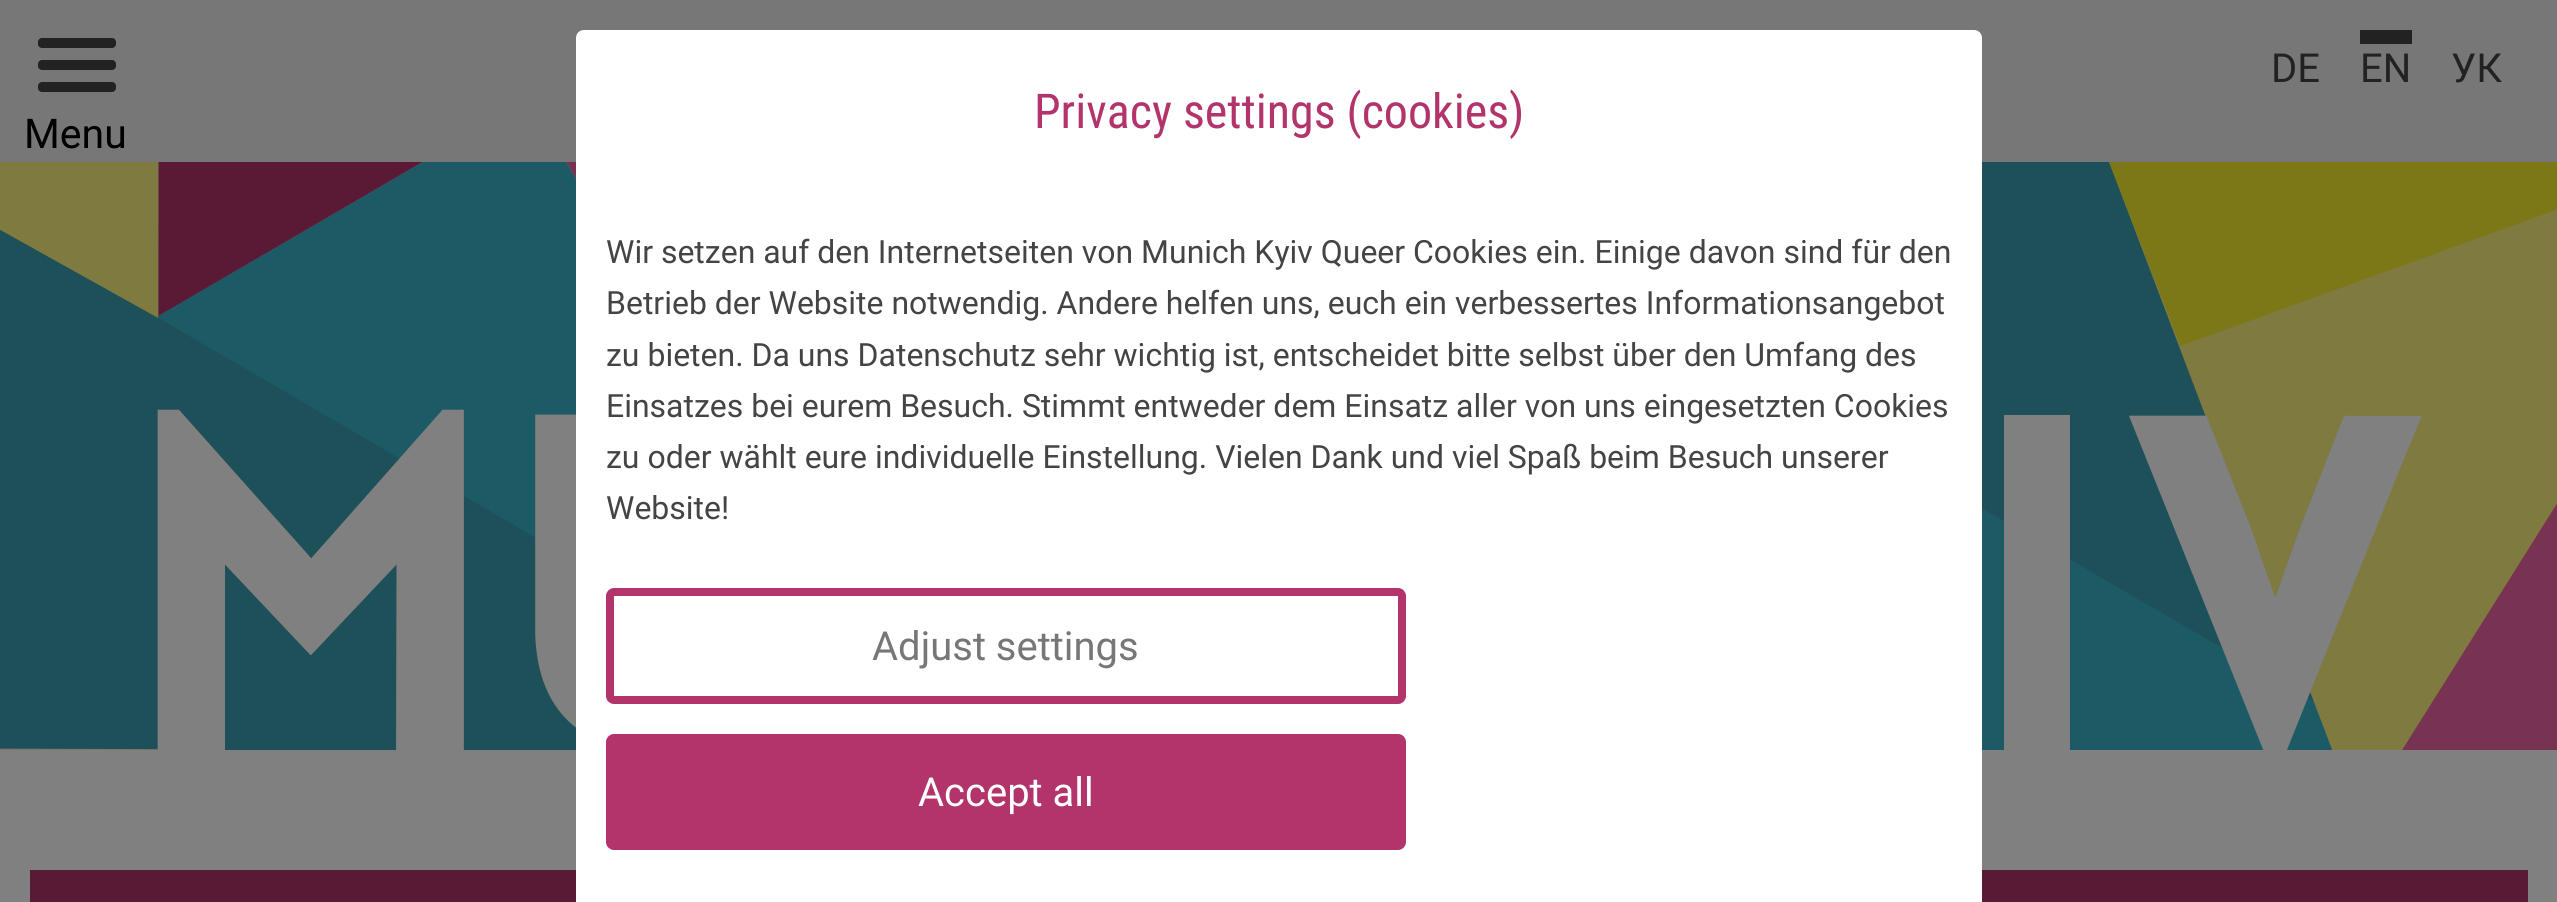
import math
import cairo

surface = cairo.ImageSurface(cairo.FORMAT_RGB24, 2557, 902)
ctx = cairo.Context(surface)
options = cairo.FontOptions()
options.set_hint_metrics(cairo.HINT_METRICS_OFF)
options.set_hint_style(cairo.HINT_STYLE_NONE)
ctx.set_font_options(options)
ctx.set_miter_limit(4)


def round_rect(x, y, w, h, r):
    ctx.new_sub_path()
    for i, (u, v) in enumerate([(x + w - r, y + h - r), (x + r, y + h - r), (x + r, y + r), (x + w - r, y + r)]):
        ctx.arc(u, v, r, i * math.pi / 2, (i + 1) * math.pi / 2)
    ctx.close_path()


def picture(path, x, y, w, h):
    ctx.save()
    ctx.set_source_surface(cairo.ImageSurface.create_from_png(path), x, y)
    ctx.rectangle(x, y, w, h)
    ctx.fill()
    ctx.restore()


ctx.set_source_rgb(0.502, 0.502, 0.502)
ctx.paint()
ctx.set_source_rgb(0.467, 0.467, 0.467)
ctx.rectangle(0, 0, 2557, 750)
ctx.fill()
ctx.select_font_face("Roboto")
ctx.set_font_size(40)
ctx.set_source_rgb(0.133, 0.133, 0.133)
ctx.move_to(2271, 82)
ctx.show_text("DE")
ctx.move_to(2360, 82)
ctx.show_text("EN")
ctx.rectangle(2360, 30, 52, 14)
ctx.fill()
ctx.move_to(2451, 82)
ctx.show_text("УК")
round_rect(38, 60, 78, 10, 4)
ctx.fill()
round_rect(38, 38, 78, 10, 4)
ctx.fill()
round_rect(38, 82, 78, 10, 4)
ctx.fill()
ctx.set_font_size(41)
ctx.set_source_rgb(0, 0, 0)
ctx.move_to(24, 148)
ctx.show_text("Menu")
picture("img1.png", 0, 162, 2557, 588)
ctx.set_source_rgb(0.349, 0.102, 0.212)
ctx.rectangle(30, 870, 2498, 32)
ctx.fill()
ctx.set_source_rgb(1, 1, 1)
ctx.new_path()
ctx.move_to(584, 30)
ctx.line_to(1974, 30)
ctx.curve_to(1978.5, 30, 1982, 33.5, 1982, 38)
ctx.line_to(1982, 902)
ctx.line_to(576, 902)
ctx.line_to(576, 38)
ctx.curve_to(576, 33.5, 579.5, 30, 584, 30)
ctx.close_path()
ctx.fill()
ctx.select_font_face("Roboto Condensed")
ctx.set_font_size(48)
ctx.set_source_rgb(0.698, 0.204, 0.42)
ctx.move_to(1034, 128)
ctx.show_text("Privacy settings (cookies)")
ctx.select_font_face("Roboto")
ctx.set_font_size(32)
ctx.set_source_rgb(0.267, 0.267, 0.267)
ctx.move_to(606, 263)
ctx.show_text("Wir setzen auf den Internetseiten von Munich Kyiv Queer Cookies ein. Einige davon sind für den")
ctx.move_to(606, 314)
ctx.show_text("Betrieb der Website notwendig. Andere helfen uns, euch ein verbessertes Informationsangebot")
ctx.move_to(606, 366)
ctx.show_text("zu bieten. Da uns Datenschutz sehr wichtig ist, entscheidet bitte selbst über den Umfang des")
ctx.move_to(606, 417)
ctx.show_text("Einsatzes bei eurem Besuch. Stimmt entweder dem Einsatz aller von uns eingesetzten Cookies")
ctx.move_to(606, 468)
ctx.show_text("zu oder wählt eure individuelle Einstellung. Vielen Dank und viel Spaß beim Besuch unserer")
ctx.move_to(606, 519)
ctx.show_text("Website!")
round_rect(610, 592, 792, 108, 4)
ctx.set_source_rgb(0.698, 0.204, 0.42)
ctx.set_line_width(8)
ctx.stroke()
ctx.set_font_size(40)
ctx.set_source_rgb(0.467, 0.467, 0.467)
ctx.move_to(872, 660)
ctx.show_text("Adjust settings")
ctx.set_source_rgb(0.698, 0.204, 0.42)
round_rect(610, 738, 792, 108, 4)
ctx.fill_preserve()
ctx.stroke()
ctx.set_source_rgb(1, 1, 1)
ctx.move_to(918, 806)
ctx.show_text("Accept all")
surface.write_to_png("page.png")
